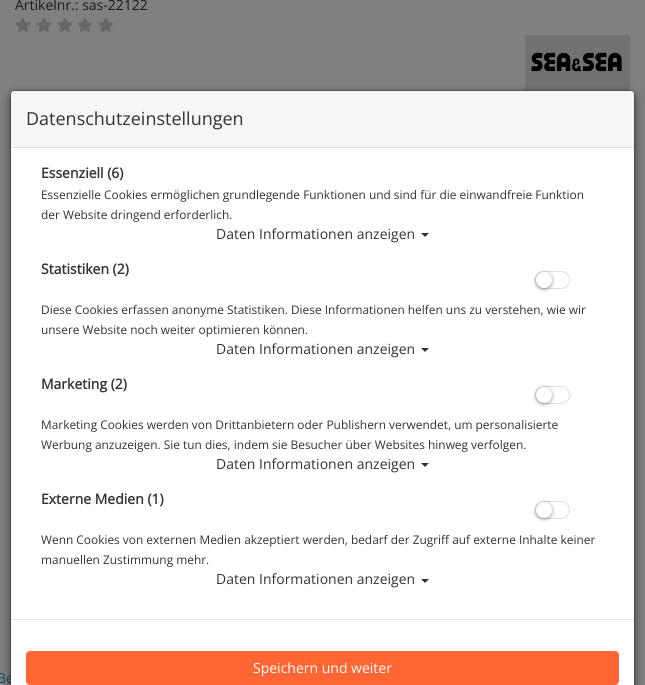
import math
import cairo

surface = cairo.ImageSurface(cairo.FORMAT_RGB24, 645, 685)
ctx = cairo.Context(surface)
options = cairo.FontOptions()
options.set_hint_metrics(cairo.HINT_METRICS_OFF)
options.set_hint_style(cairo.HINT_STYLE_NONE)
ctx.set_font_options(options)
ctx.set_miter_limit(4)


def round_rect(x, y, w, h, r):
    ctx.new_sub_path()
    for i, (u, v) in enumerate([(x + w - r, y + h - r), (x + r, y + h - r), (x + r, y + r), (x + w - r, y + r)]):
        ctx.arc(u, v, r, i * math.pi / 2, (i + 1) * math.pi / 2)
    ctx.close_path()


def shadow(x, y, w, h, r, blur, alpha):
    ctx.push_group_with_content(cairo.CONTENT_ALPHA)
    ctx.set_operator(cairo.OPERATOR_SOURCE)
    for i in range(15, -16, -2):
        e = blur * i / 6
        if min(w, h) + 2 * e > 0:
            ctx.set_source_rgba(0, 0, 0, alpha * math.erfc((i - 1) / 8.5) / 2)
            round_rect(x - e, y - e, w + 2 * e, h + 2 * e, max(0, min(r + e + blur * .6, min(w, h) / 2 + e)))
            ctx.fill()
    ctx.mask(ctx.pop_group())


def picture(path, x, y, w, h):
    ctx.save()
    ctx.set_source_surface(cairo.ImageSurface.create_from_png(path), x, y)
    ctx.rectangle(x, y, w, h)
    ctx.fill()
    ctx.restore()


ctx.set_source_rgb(0.502, 0.502, 0.502)
ctx.paint()
ctx.select_font_face("Open Sans")
ctx.set_font_size(14)
ctx.set_source_rgb(0.102, 0.102, 0.102)
ctx.move_to(15, 10)
ctx.show_text("Artikelnr.: sas-22122")
picture("img1.png", 15, 18, 16, 14)
picture("img1.png", 36, 18, 16, 14)
picture("img1.png", 57, 18, 16, 14)
picture("img1.png", 77, 18, 16, 14)
picture("img1.png", 98, 18, 16, 14)
picture("img2.png", 525, 35, 105, 56)
ctx.set_source_rgb(0.078, 0.31, 0.416)
ctx.move_to(-3, 683)
ctx.show_text("Be")
ctx.set_source_rgb(0, 0, 0)
shadow(10, 93, 625, 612, 6, 4.5, 0.5)
ctx.set_source_rgb(1, 1, 1)
ctx.new_path()
ctx.move_to(16, 91)
ctx.line_to(629, 91)
ctx.curve_to(632, 91, 634, 93, 634, 96)
ctx.line_to(634, 685)
ctx.line_to(11, 685)
ctx.line_to(11, 96)
ctx.curve_to(11, 93, 13, 91, 16, 91)
ctx.close_path()
ctx.fill()
round_rect(10.5, 90.5, 624, 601, 5.5)
ctx.set_source_rgba(0, 0, 0, 0.2)
ctx.set_line_width(1)
ctx.stroke()
ctx.set_source_rgb(0.961, 0.961, 0.961)
ctx.new_path()
ctx.move_to(14, 91)
ctx.line_to(631, 91)
ctx.curve_to(632.5, 91, 634, 92.5, 634, 94)
ctx.line_to(634, 148)
ctx.line_to(11, 148)
ctx.line_to(11, 94)
ctx.curve_to(11, 92.5, 12.5, 91, 14, 91)
ctx.close_path()
ctx.fill()
ctx.set_source_rgb(0.867, 0.867, 0.867)
ctx.rectangle(11, 147, 623, 1)
ctx.fill()
ctx.set_font_size(18)
ctx.set_source_rgb(0.2, 0.2, 0.2)
ctx.move_to(26, 125)
ctx.show_text("Datenschutzeinstellungen")
ctx.select_font_face("Open Sans", cairo.FONT_SLANT_NORMAL, cairo.FONT_WEIGHT_BOLD)
ctx.set_font_size(14)
ctx.move_to(41, 178)
ctx.show_text("Essenziell (6)")
ctx.select_font_face("Open Sans")
ctx.set_font_size(11.9)
ctx.move_to(41, 199)
ctx.show_text("Essenzielle Cookies ermöglichen grundlegende Funktionen und sind für die einwandfreie Funktion")
ctx.move_to(41, 219)
ctx.show_text("der Website dringend erforderlich.")
ctx.set_font_size(14)
ctx.move_to(216, 239)
ctx.show_text("Daten Informationen anzeigen")
ctx.new_path()
ctx.move_to(421, 233)
ctx.line_to(429, 233)
ctx.line_to(425, 237)
ctx.close_path()
ctx.fill()
ctx.select_font_face("Open Sans", cairo.FONT_SLANT_NORMAL, cairo.FONT_WEIGHT_BOLD)
ctx.move_to(41, 274)
ctx.show_text("Statistiken (2)")
round_rect(535.5, 271.5, 34, 17, 8.5)
ctx.set_source_rgb(0.875, 0.875, 0.875)
ctx.stroke()
ctx.set_source_rgb(0, 0, 0)
shadow(536, 273, 16, 16, 8, 2, 0.4)
ctx.set_source_rgb(1, 1, 1)
ctx.arc(544, 280, 8, 0, 2 * math.pi)
ctx.fill()
ctx.select_font_face("Open Sans")
ctx.set_font_size(11.9)
ctx.set_source_rgb(0.2, 0.2, 0.2)
ctx.move_to(41, 314)
ctx.show_text("Diese Cookies erfassen anonyme Statistiken. Diese Informationen helfen uns zu verstehen, wie wir")
ctx.move_to(41, 334)
ctx.show_text("unsere Website noch weiter optimieren können.")
ctx.set_font_size(14)
ctx.move_to(216, 354)
ctx.show_text("Daten Informationen anzeigen")
ctx.new_path()
ctx.move_to(421, 348)
ctx.line_to(429, 348)
ctx.line_to(425, 352)
ctx.close_path()
ctx.fill()
ctx.select_font_face("Open Sans", cairo.FONT_SLANT_NORMAL, cairo.FONT_WEIGHT_BOLD)
ctx.move_to(41, 389)
ctx.show_text("Marketing (2)")
round_rect(535.5, 386.5, 34, 17, 8.5)
ctx.set_source_rgb(0.875, 0.875, 0.875)
ctx.stroke()
ctx.set_source_rgb(0, 0, 0)
shadow(536, 388, 16, 16, 8, 2, 0.4)
ctx.set_source_rgb(1, 1, 1)
ctx.arc(544, 395, 8, 0, 2 * math.pi)
ctx.fill()
ctx.select_font_face("Open Sans")
ctx.set_font_size(11.9)
ctx.set_source_rgb(0.2, 0.2, 0.2)
ctx.move_to(41, 429)
ctx.show_text("Marketing Cookies werden von Drittanbietern oder Publishern verwendet, um personalisierte")
ctx.move_to(41, 449)
ctx.show_text("Werbung anzuzeigen. Sie tun dies, indem sie Besucher über Websites hinweg verfolgen.")
ctx.set_font_size(14)
ctx.move_to(216, 469)
ctx.show_text("Daten Informationen anzeigen")
ctx.new_path()
ctx.move_to(421, 463)
ctx.line_to(429, 463)
ctx.line_to(425, 467)
ctx.close_path()
ctx.fill()
ctx.select_font_face("Open Sans", cairo.FONT_SLANT_NORMAL, cairo.FONT_WEIGHT_BOLD)
ctx.move_to(41, 504)
ctx.show_text("Externe Medien (1)")
round_rect(535.5, 501.5, 34, 17, 8.5)
ctx.set_source_rgb(0.875, 0.875, 0.875)
ctx.stroke()
ctx.set_source_rgb(0, 0, 0)
shadow(536, 503, 16, 16, 8, 2, 0.4)
ctx.set_source_rgb(1, 1, 1)
ctx.arc(544, 510, 8, 0, 2 * math.pi)
ctx.fill()
ctx.select_font_face("Open Sans")
ctx.set_font_size(11.9)
ctx.set_source_rgb(0.2, 0.2, 0.2)
ctx.move_to(41, 544)
ctx.show_text("Wenn Cookies von externen Medien akzeptiert werden, bedarf der Zugriff auf externe Inhalte keiner")
ctx.move_to(41, 564)
ctx.show_text("manuellen Zustimmung mehr.")
ctx.set_font_size(14)
ctx.move_to(216, 584)
ctx.show_text("Daten Informationen anzeigen")
ctx.new_path()
ctx.move_to(421, 579)
ctx.line_to(429, 579)
ctx.line_to(425, 583)
ctx.close_path()
ctx.fill()
ctx.set_source_rgb(0.898, 0.898, 0.898)
ctx.rectangle(11, 619, 623, 1)
ctx.fill()
ctx.set_source_rgb(1, 0.4, 0.2)
round_rect(26.5, 651.5, 592, 33, 3.5)
ctx.fill_preserve()
ctx.stroke()
ctx.set_source_rgb(1, 1, 1)
ctx.move_to(253, 673)
ctx.show_text("Speichern und weiter")
surface.write_to_png("page.png")
